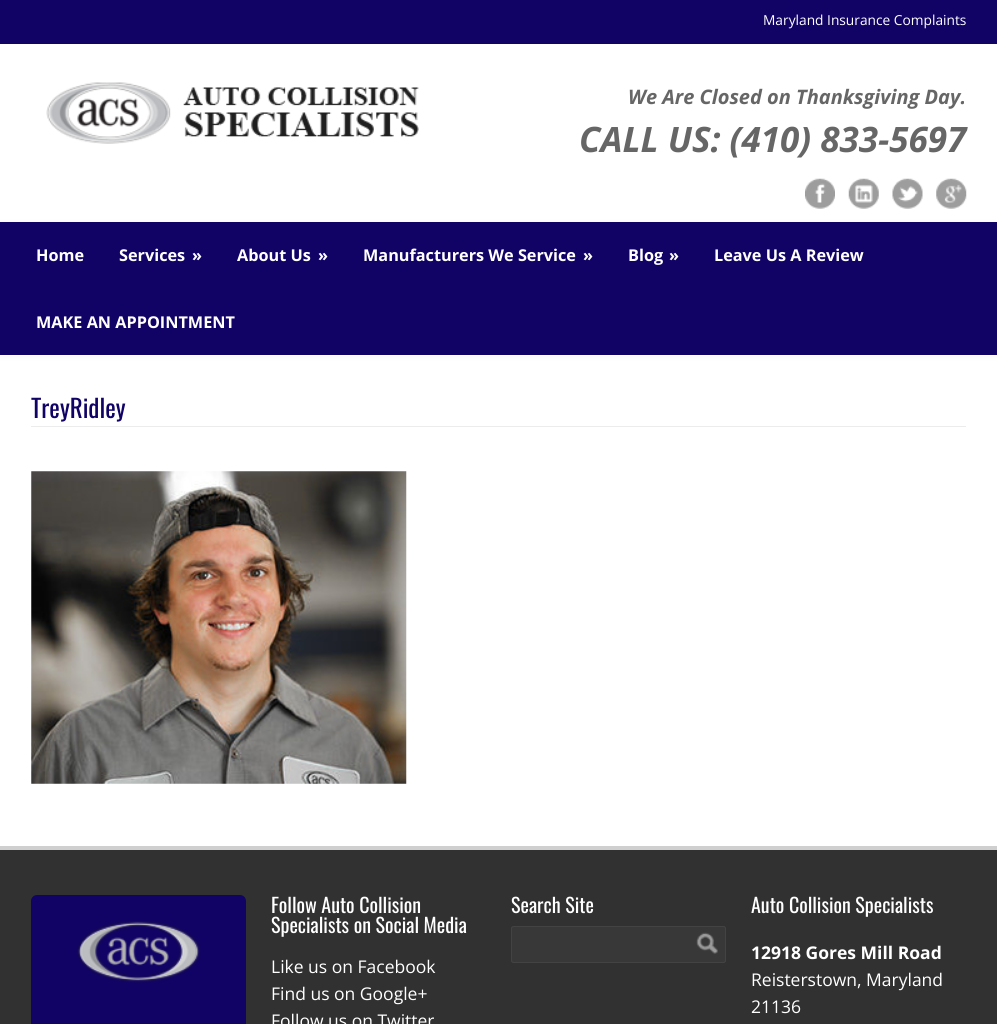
import math
import cairo

surface = cairo.ImageSurface(cairo.FORMAT_RGB24, 997, 1024)
ctx = cairo.Context(surface)
options = cairo.FontOptions()
options.set_hint_metrics(cairo.HINT_METRICS_OFF)
options.set_hint_style(cairo.HINT_STYLE_NONE)
ctx.set_font_options(options)
ctx.set_miter_limit(4)


def round_rect(x, y, w, h, r):
    ctx.new_sub_path()
    for i, (u, v) in enumerate([(x + w - r, y + h - r), (x + r, y + h - r), (x + r, y + r), (x + w - r, y + r)]):
        ctx.arc(u, v, r, i * math.pi / 2, (i + 1) * math.pi / 2)
    ctx.close_path()


def shadow(x, y, w, h, r, blur, alpha):
    ctx.push_group_with_content(cairo.CONTENT_ALPHA)
    ctx.set_operator(cairo.OPERATOR_SOURCE)
    for i in range(15, -16, -2):
        e = blur * i / 6
        if min(w, h) + 2 * e > 0:
            ctx.set_source_rgba(0, 0, 0, alpha * math.erfc((i - 1) / 8.5) / 2)
            round_rect(x - e, y - e, w + 2 * e, h + 2 * e, max(0, min(r + e + blur * .6, min(w, h) / 2 + e)))
            ctx.fill()
    ctx.mask(ctx.pop_group())


def picture(path, x, y, w, h):
    ctx.save()
    ctx.set_source_surface(cairo.ImageSurface.create_from_png(path), x, y)
    ctx.rectangle(x, y, w, h)
    ctx.fill()
    ctx.restore()


ctx.set_source_rgb(1, 1, 1)
ctx.paint()
ctx.set_source_rgb(0.067, 0.012, 0.4)
ctx.rectangle(0, 0, 997, 44)
ctx.fill()
ctx.select_font_face("Open Sans")
ctx.set_font_size(13.75)
ctx.set_source_rgb(1, 1, 1)
ctx.move_to(763, 25)
ctx.show_text("Maryland Insurance Complaints")
picture("img1.png", 46, 82, 373, 62)
ctx.select_font_face("Open Sans", cairo.FONT_SLANT_ITALIC, cairo.FONT_WEIGHT_BOLD)
ctx.set_font_size(20)
ctx.set_source_rgb(0.4, 0.4, 0.4)
ctx.move_to(628, 104)
ctx.show_text("We Are Closed on Thanksgiving Day.")
ctx.set_font_size(35)
ctx.move_to(579, 152)
ctx.show_text("CALL US: (410) 833-5697")
picture("img2.png", 805, 178, 30, 31)
picture("img3.png", 848, 178, 31, 31)
picture("img4.png", 892, 178, 31, 31)
picture("img5.png", 936, 178, 31, 31)
ctx.set_source_rgb(0.961, 0.961, 0.961)
shadow(1, 224, 995, 132, 0, 3, 1)
ctx.set_source_rgb(0.067, 0.012, 0.4)
ctx.rectangle(0, 222, 997, 133)
ctx.fill()
ctx.set_source_rgb(1, 1, 1)
ctx.rectangle(0, 355, 997, 1)
ctx.fill()
ctx.select_font_face("Open Sans", cairo.FONT_SLANT_NORMAL, cairo.FONT_WEIGHT_BOLD)
ctx.set_font_size(16.25)
ctx.move_to(36, 261)
ctx.show_text("Home")
ctx.move_to(119, 261)
ctx.show_text("Services")
ctx.move_to(192, 261)
ctx.show_text("»")
ctx.move_to(237, 261)
ctx.show_text("About Us")
ctx.move_to(318, 261)
ctx.show_text("»")
ctx.move_to(363, 261)
ctx.show_text("Manufacturers We Service")
ctx.move_to(583, 261)
ctx.show_text("»")
ctx.move_to(628, 261)
ctx.show_text("Blog")
ctx.move_to(669, 261)
ctx.show_text("»")
ctx.move_to(714, 261)
ctx.show_text("Leave Us A Review")
ctx.move_to(36, 328)
ctx.show_text("MAKE AN APPOINTMENT")
ctx.set_source_rgb(0.925, 0.925, 0.925)
ctx.rectangle(31, 426, 935, 1)
ctx.fill()
ctx.select_font_face("Oswald")
ctx.set_font_size(25)
ctx.set_source_rgb(0.067, 0.012, 0.4)
ctx.move_to(31, 418)
ctx.show_text("TreyRidley")
picture("img6.png", 31, 471, 376, 313)
ctx.set_source_rgb(0.192, 0.192, 0.192)
ctx.rectangle(0, 850, 997, 174)
ctx.fill()
ctx.set_source_rgb(0.812, 0.812, 0.812)
ctx.rectangle(0, 846, 997, 4)
ctx.fill()
ctx.set_source_rgb(0.067, 0.012, 0.4)
round_rect(31, 895, 215, 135, 6)
ctx.fill()
picture("img7.png", 76, 921, 125, 62)
ctx.set_font_size(20)
ctx.set_source_rgb(1, 1, 1)
ctx.move_to(271, 913)
ctx.show_text("Follow Auto Collision")
ctx.move_to(271, 933)
ctx.show_text("Specialists on Social Media")
ctx.select_font_face("Open Sans")
ctx.set_font_size(17.5)
ctx.move_to(271, 973)
ctx.show_text("Like us on Facebook")
ctx.move_to(271, 1000)
ctx.show_text("Find us on Google+")
ctx.move_to(271, 1027)
ctx.show_text("Follow us on Twitter")
ctx.select_font_face("Oswald")
ctx.set_font_size(20)
ctx.move_to(511, 913)
ctx.show_text("Search Site")
ctx.set_source_rgb(0.22, 0.22, 0.22)
round_rect(511.5, 926.5, 214, 36, 2)
ctx.fill_preserve()
ctx.set_source_rgb(0.263, 0.263, 0.263)
ctx.set_line_width(1)
ctx.stroke()
picture("img8.png", 696, 932, 22, 22)
ctx.set_source_rgb(1, 1, 1)
ctx.move_to(751, 913)
ctx.show_text("Auto Collision Specialists")
ctx.select_font_face("Open Sans", cairo.FONT_SLANT_NORMAL, cairo.FONT_WEIGHT_BOLD)
ctx.set_font_size(17.5)
ctx.move_to(751, 959)
ctx.show_text("12918 Gores Mill Road")
ctx.select_font_face("Open Sans")
ctx.move_to(751, 986)
ctx.show_text("Reisterstown, Maryland")
ctx.move_to(751, 1013)
ctx.show_text("21136")
surface.write_to_png("page.png")
